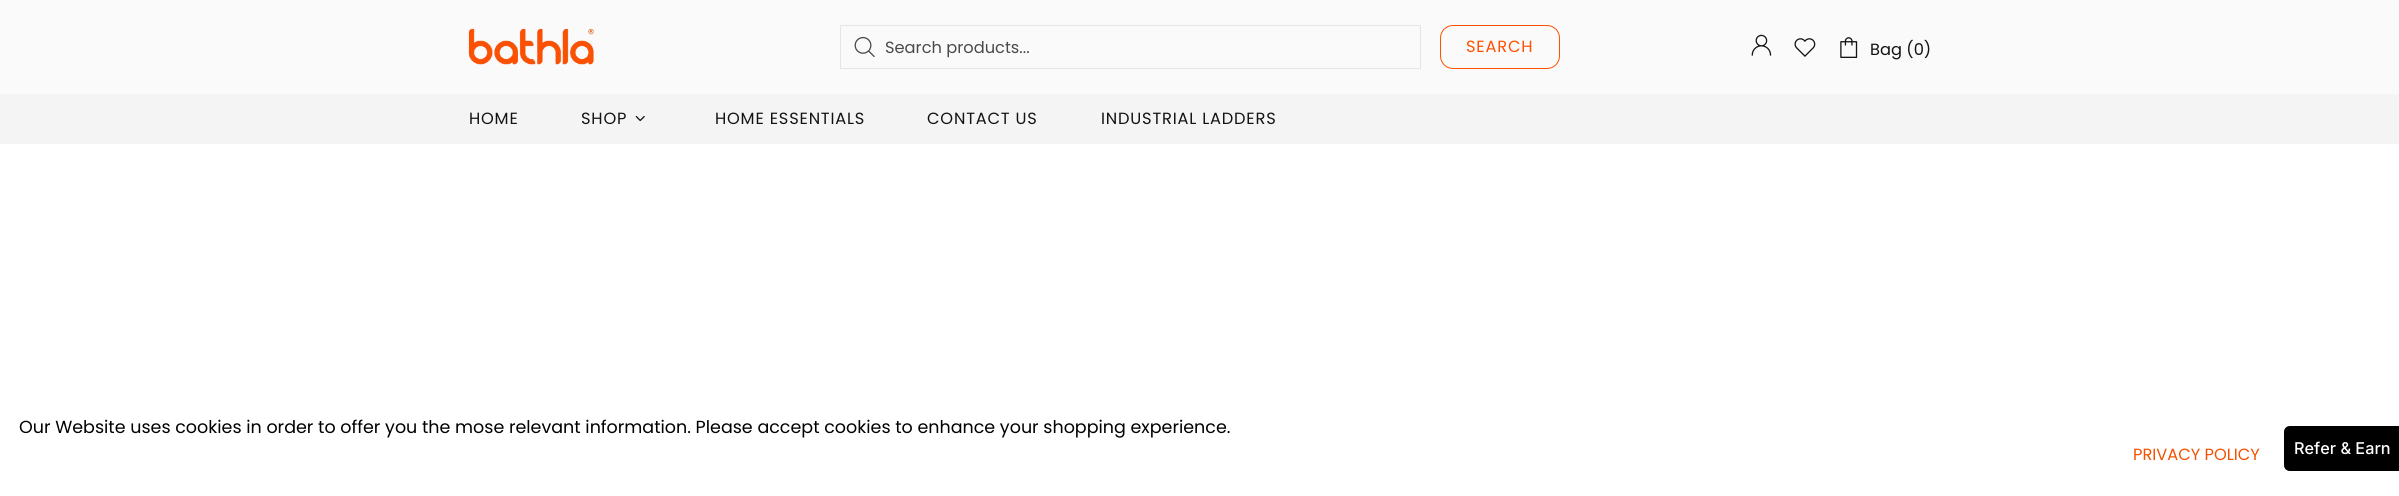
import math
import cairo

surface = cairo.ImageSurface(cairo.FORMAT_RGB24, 2399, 496)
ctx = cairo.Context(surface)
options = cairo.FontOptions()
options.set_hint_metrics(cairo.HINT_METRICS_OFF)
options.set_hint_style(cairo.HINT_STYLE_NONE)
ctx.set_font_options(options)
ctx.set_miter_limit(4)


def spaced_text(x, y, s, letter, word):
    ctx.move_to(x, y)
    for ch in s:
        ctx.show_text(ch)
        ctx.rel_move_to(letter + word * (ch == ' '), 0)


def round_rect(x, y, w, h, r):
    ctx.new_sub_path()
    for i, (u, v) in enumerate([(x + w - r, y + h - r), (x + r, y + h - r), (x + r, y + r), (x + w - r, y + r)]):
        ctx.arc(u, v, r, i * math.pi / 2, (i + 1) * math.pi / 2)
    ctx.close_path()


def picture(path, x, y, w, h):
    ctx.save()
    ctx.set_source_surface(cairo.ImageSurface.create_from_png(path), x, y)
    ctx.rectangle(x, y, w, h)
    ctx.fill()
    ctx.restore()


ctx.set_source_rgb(1, 1, 1)
ctx.paint()
ctx.set_source_rgb(0.98, 0.98, 0.98)
ctx.rectangle(0, 0, 2399, 94)
ctx.fill()
picture("img1.png", 468, 28, 126, 37)
ctx.rectangle(840.5, 25.5, 580, 43)
ctx.set_source_rgb(0.898, 0.898, 0.898)
ctx.set_line_width(1)
ctx.stroke()
picture("img2.png", 854, 36, 21, 22)
ctx.select_font_face("Poppins")
ctx.set_font_size(16.25)
ctx.set_source_rgb(0.29, 0.29, 0.29)
ctx.move_to(885, 53)
ctx.show_text("Search products...")
round_rect(1440.5, 25.5, 119, 43, 12.5)
ctx.set_source_rgb(1, 0.318, 0)
ctx.stroke()
spaced_text(1466, 52, "SEARCH", 0.8, 0)
picture("img3.png", 1751, 34, 21, 22)
picture("img4.png", 1794, 38, 22, 19)
picture("img5.png", 1840, 37, 18, 21)
ctx.set_source_rgb(0.078, 0.078, 0.078)
ctx.move_to(1870, 55)
ctx.show_text("Bag (0)")
ctx.set_source_rgb(0.957, 0.957, 0.957)
ctx.rectangle(0, 94, 2399, 50)
ctx.fill()
ctx.set_source_rgb(0.078, 0.078, 0.078)
spaced_text(469, 124, "HOME", 0.8, 0)
spaced_text(581, 124, "SHOP", 0.8, 0)
picture("img6.png", 635, 115, 10, 7)
spaced_text(715, 124, "HOME ESSENTIALS", 0.8, 0)
spaced_text(927, 124, "CONTACT US", 0.8, 0)
spaced_text(1101, 124, "INDUSTRIAL LADDERS", 0.8, 0)
ctx.set_font_size(17.5)
ctx.set_source_rgb(0, 0, 0)
ctx.move_to(19, 433)
ctx.show_text("Our Website uses cookies in order to offer you the mose relevant information. Please accept cookies to enhance your shopping experience.")
ctx.set_font_size(16.25)
ctx.set_source_rgb(0.953, 0.318, 0.008)
ctx.move_to(2133, 460)
ctx.show_text("PRIVACY POLICY")
ctx.set_source_rgb(0, 0, 0)
ctx.new_path()
ctx.move_to(2290, 426)
ctx.line_to(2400, 426)
ctx.line_to(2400, 471)
ctx.line_to(2290, 471)
ctx.curve_to(2286.5, 471, 2284, 468.5, 2284, 465)
ctx.line_to(2284, 432)
ctx.curve_to(2284, 428.5, 2286.5, 426, 2290, 426)
ctx.close_path()
ctx.fill()
ctx.select_font_face("Inter Medium")
ctx.set_source_rgb(1, 1, 1)
ctx.move_to(2294, 454)
ctx.show_text("Refer & Earn")
surface.write_to_png("page.png")
